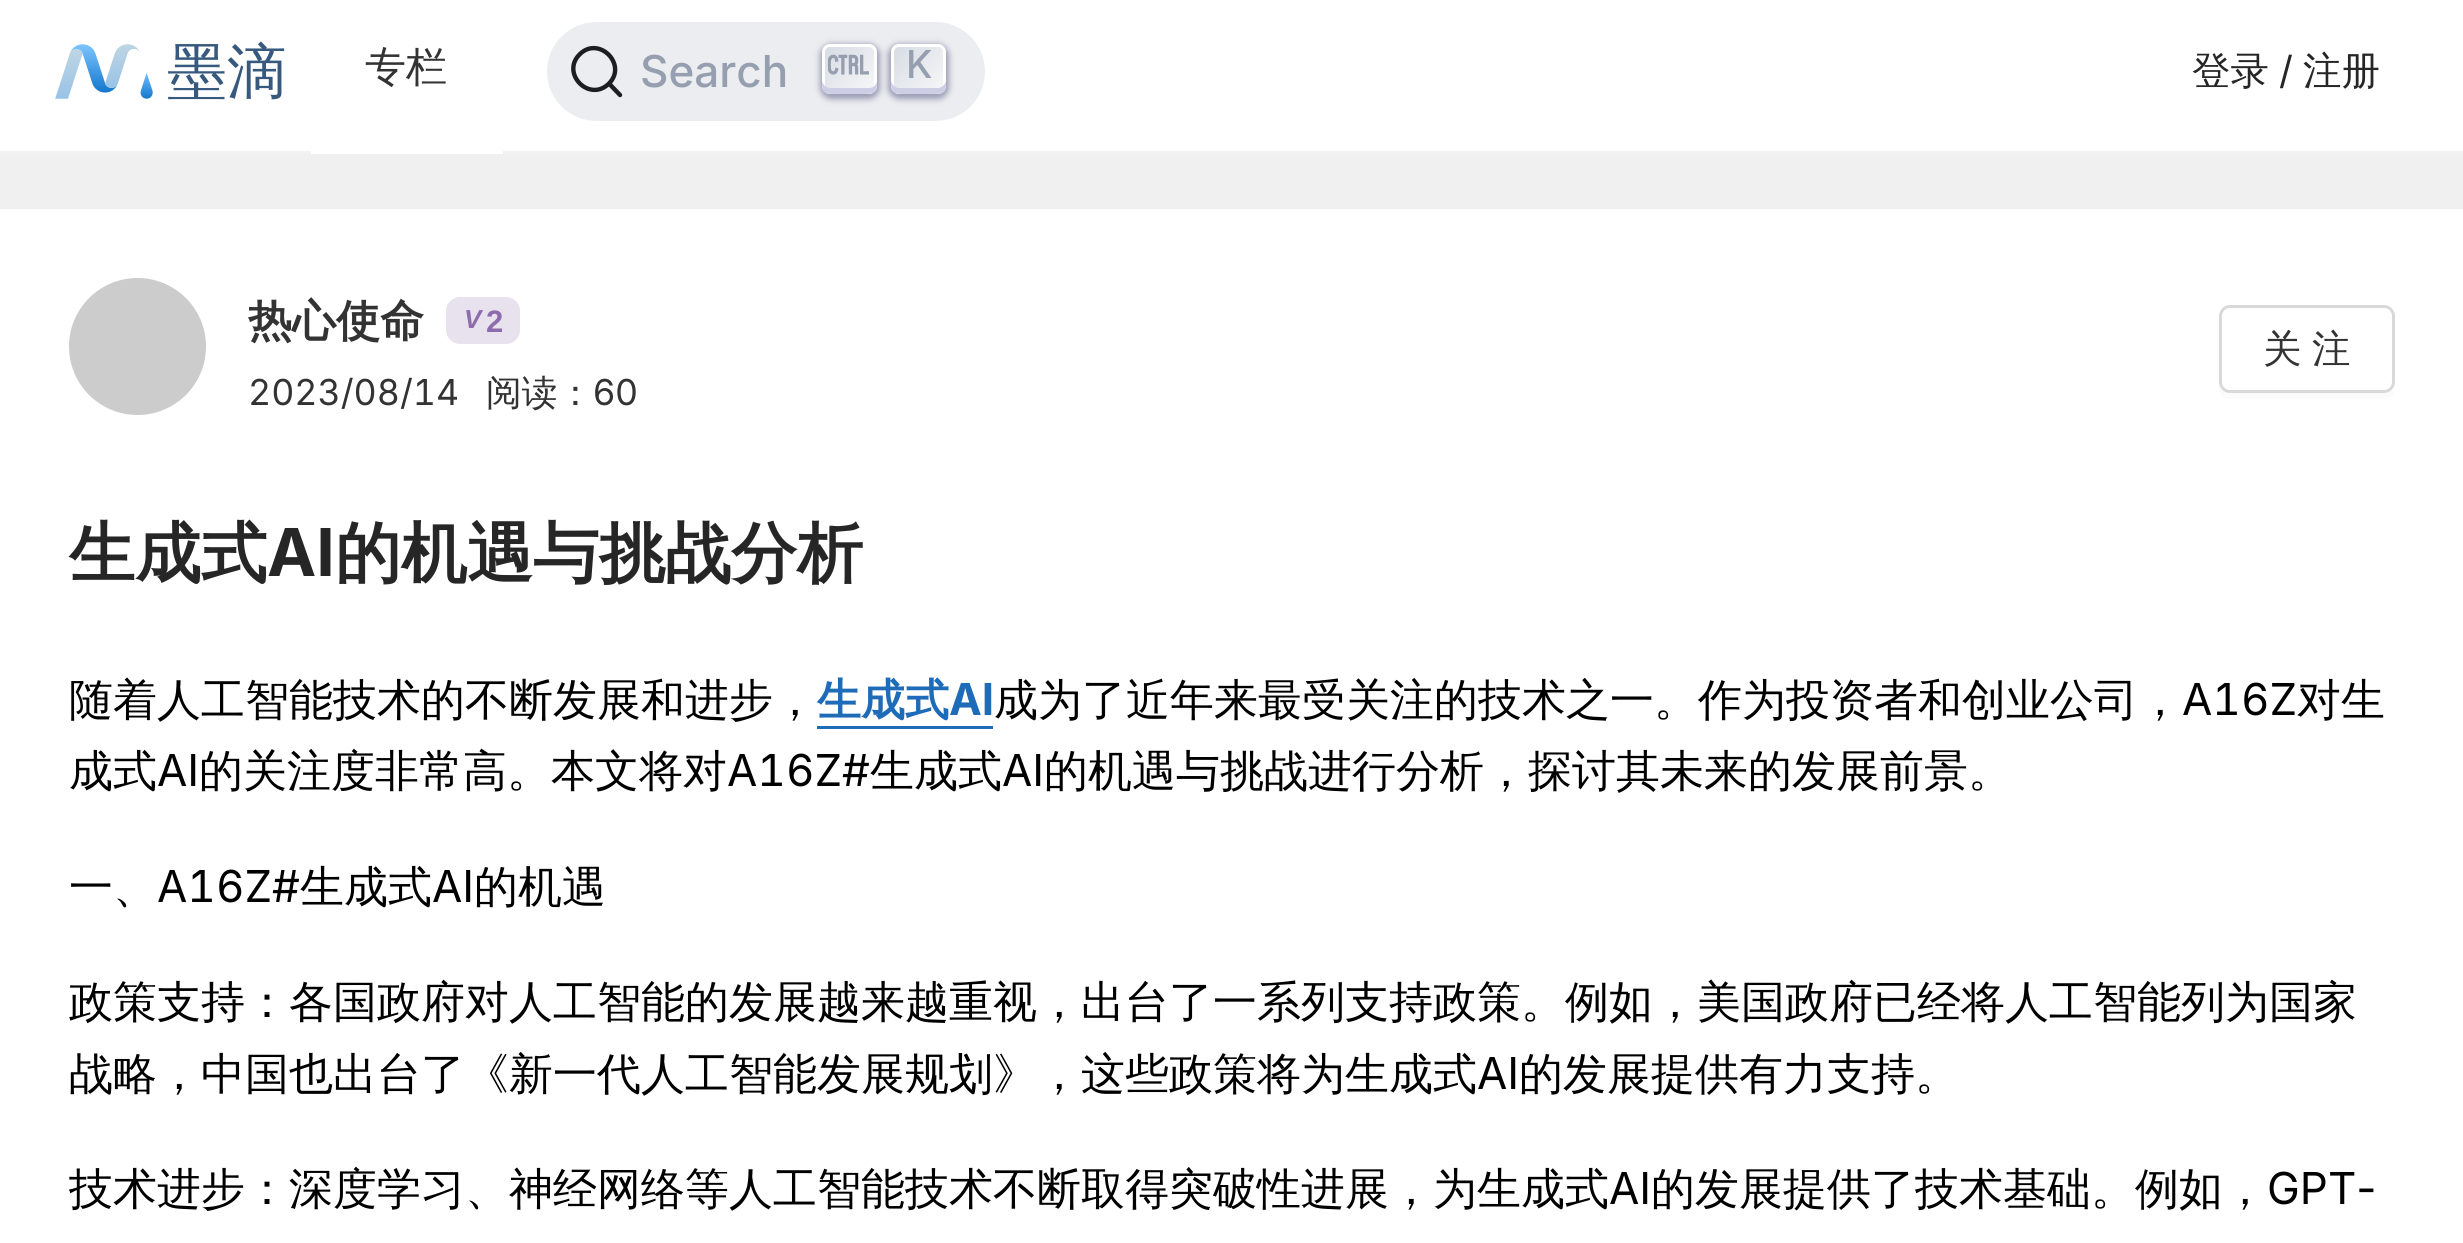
import math
import cairo

surface = cairo.ImageSurface(cairo.FORMAT_RGB24, 2463, 1243)
ctx = cairo.Context(surface)
options = cairo.FontOptions()
options.set_hint_metrics(cairo.HINT_METRICS_OFF)
options.set_hint_style(cairo.HINT_STYLE_NONE)
ctx.set_font_options(options)
ctx.set_miter_limit(4)


def spaced_text(x, y, s, letter, word):
    ctx.move_to(x, y)
    for ch in s:
        ctx.show_text(ch)
        ctx.rel_move_to(letter + word * (ch == ' '), 0)


def round_rect(x, y, w, h, r):
    ctx.new_sub_path()
    for i, (u, v) in enumerate([(x + w - r, y + h - r), (x + r, y + h - r), (x + r, y + r), (x + w - r, y + r)]):
        ctx.arc(u, v, r, i * math.pi / 2, (i + 1) * math.pi / 2)
    ctx.close_path()


def shadow(x, y, w, h, r, blur, alpha):
    ctx.push_group_with_content(cairo.CONTENT_ALPHA)
    ctx.set_operator(cairo.OPERATOR_SOURCE)
    for i in range(15, -16, -2):
        e = blur * i / 6
        if min(w, h) + 2 * e > 0:
            ctx.set_source_rgba(0, 0, 0, alpha * math.erfc((i - 1) / 8.5) / 2)
            round_rect(x - e, y - e, w + 2 * e, h + 2 * e, max(0, min(r + e + blur * .6, min(w, h) / 2 + e)))
            ctx.fill()
    ctx.mask(ctx.pop_group())


def picture(path, x, y, w, h):
    ctx.save()
    ctx.set_source_surface(cairo.ImageSurface.create_from_png(path), x, y)
    ctx.rectangle(x, y, w, h)
    ctx.fill()
    ctx.restore()


ctx.set_source_rgb(1, 1, 1)
ctx.paint()
ctx.set_source_rgb(0.945, 0.945, 0.945)
ctx.rectangle(0, 151, 2463, 3)
ctx.fill()
picture("img1.png", 55, 44, 98, 55)
ctx.select_font_face("WenQuanYi Zen Hei Medium")
ctx.set_font_size(60)
ctx.set_source_rgb(0.216, 0.349, 0.49)
ctx.move_to(167, 92)
ctx.show_text("墨滴")
ctx.set_source_rgb(1, 1, 1)
ctx.rectangle(311, 151, 192, 3)
ctx.fill()
ctx.set_font_size(41)
ctx.set_source_rgb(0.2, 0.2, 0.2)
ctx.move_to(365, 81)
ctx.show_text("专栏")
ctx.set_source_rgb(0.922, 0.929, 0.941)
round_rect(547, 22, 438, 99, 49.5)
ctx.fill()
ctx.new_path()
ctx.move_to(609, 83.5)
ctx.line_to(620, 95)
ctx.line_to(609, 83.5)
ctx.curve_to(589.5, 103, 560.5, 73.5, 579.5, 54.5)
ctx.curve_to(598.5, 35, 628, 64.5, 609, 83.5)
ctx.close_path()
ctx.set_source_rgb(0.11, 0.118, 0.129)
ctx.set_line_width(4.4)
ctx.set_line_cap(cairo.LINE_CAP_ROUND)
ctx.set_line_join(cairo.LINE_JOIN_ROUND)
ctx.stroke()
ctx.select_font_face("Inter Medium")
ctx.set_font_size(44)
ctx.set_source_rgb(0.588, 0.624, 0.686)
ctx.move_to(640, 87)
ctx.show_text("Search")
ctx.set_source_rgb(0.118, 0.137, 0.353)
shadow(820, 44, 60, 55, 11, 3, 0.4)
gradient = cairo.LinearGradient(824, 43, 876, 95)
gradient.add_color_stop_rgba(0, 0.835, 0.859, 0.894, 1)
gradient.add_color_stop_rgba(1, 0.973, 0.973, 0.973, 1)
ctx.set_source(gradient)
round_rect(823.5, 45.5, 52, 47, 6.5)
ctx.fill_preserve()
ctx.set_source_rgb(1, 1, 1)
ctx.set_line_width(3)
ctx.set_line_cap(cairo.LINE_CAP_BUTT)
ctx.set_line_join(cairo.LINE_JOIN_MITER)
ctx.stroke()
ctx.set_source_rgb(0.804, 0.804, 0.902)
ctx.new_path()
ctx.move_to(822, 80)
ctx.curve_to(822, 93, 823, 94, 836, 94)
ctx.line_to(862, 94)
ctx.curve_to(876, 94, 877, 93, 877, 80)
ctx.curve_to(877, 84, 874, 88, 869, 88)
ctx.line_to(830, 88)
ctx.curve_to(826, 88, 822, 84, 822, 80)
ctx.close_path()
ctx.fill()
picture("img2.png", 828, 54, 41, 21)
ctx.set_source_rgb(0.118, 0.137, 0.353)
shadow(888, 44, 61, 55, 11, 3, 0.4)
gradient = cairo.LinearGradient(892, 43, 945, 95)
gradient.add_color_stop_rgba(0, 0.835, 0.859, 0.894, 1)
gradient.add_color_stop_rgba(1, 0.973, 0.973, 0.973, 1)
ctx.set_source(gradient)
round_rect(892.5, 45.5, 52, 47, 6.5)
ctx.fill_preserve()
ctx.set_source_rgb(1, 1, 1)
ctx.stroke()
ctx.set_source_rgb(0.804, 0.804, 0.902)
ctx.new_path()
ctx.move_to(891, 80)
ctx.curve_to(891, 93, 892, 94, 906, 94)
ctx.line_to(932, 94)
ctx.curve_to(945, 94, 946, 93, 946, 80)
ctx.curve_to(946, 84, 942, 88, 938, 88)
ctx.line_to(899, 88)
ctx.curve_to(895, 88, 891, 84, 891, 80)
ctx.close_path()
ctx.fill()
ctx.set_font_size(38.5)
ctx.set_source_rgb(0.588, 0.624, 0.686)
ctx.move_to(906, 78)
ctx.show_text("K")
ctx.select_font_face("WenQuanYi Zen Hei Medium")
ctx.set_source_rgb(0.149, 0.149, 0.149)
ctx.move_to(2192, 84)
ctx.show_text("登录")
ctx.select_font_face("Inter")
ctx.move_to(2279, 84)
ctx.show_text("/")
ctx.select_font_face("WenQuanYi Zen Hei Medium")
ctx.move_to(2303, 84)
ctx.show_text("注册")
ctx.set_source_rgb(0.941, 0.941, 0.941)
ctx.rectangle(0, 154, 2463, 55)
ctx.fill()
ctx.set_source_rgb(0.8, 0.8, 0.8)
ctx.arc(137.5, 346.5, 68.5, 0, 2 * math.pi)
ctx.fill()
ctx.select_font_face("WenQuanYi Zen Hei", cairo.FONT_SLANT_NORMAL, cairo.FONT_WEIGHT_BOLD)
ctx.set_font_size(44)
ctx.set_source_rgb(0.2, 0.2, 0.2)
ctx.move_to(248, 336)
ctx.show_text("热心使命")
ctx.set_source_rgb(0.91, 0.886, 0.933)
round_rect(446, 297, 74, 47, 14)
ctx.fill()
ctx.select_font_face("Liberation Sans", cairo.FONT_SLANT_ITALIC, cairo.FONT_WEIGHT_BOLD)
ctx.set_font_size(26)
ctx.set_source_rgb(0.549, 0.424, 0.667)
ctx.move_to(464, 328)
ctx.show_text("V")
ctx.select_font_face("Liberation Sans", cairo.FONT_SLANT_NORMAL, cairo.FONT_WEIGHT_BOLD)
ctx.set_font_size(31)
ctx.move_to(486, 332)
ctx.show_text("2")
ctx.select_font_face("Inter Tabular")
ctx.set_font_size(35.75)
ctx.set_source_rgb(0.2, 0.2, 0.2)
ctx.move_to(248, 405)
ctx.show_text("2023/08/14")
ctx.select_font_face("WenQuanYi Zen Hei Medium")
ctx.move_to(486, 405)
ctx.show_text("阅读：")
ctx.select_font_face("Inter")
ctx.move_to(593, 405)
ctx.show_text("60")
ctx.set_source_rgb(0.984, 0.984, 0.984)
ctx.new_path()
ctx.move_to(2219, 320)
ctx.line_to(2219, 388)
ctx.curve_to(2219, 394, 2224, 399, 2230, 399)
ctx.line_to(2384, 399)
ctx.curve_to(2390, 399, 2395, 394, 2395, 388)
ctx.line_to(2395, 385)
ctx.curve_to(2394, 390, 2390, 393, 2384, 393)
ctx.line_to(2230, 393)
ctx.curve_to(2224, 393, 2219, 388, 2219, 382)
ctx.close_path()
ctx.fill()
round_rect(2220.5, 306.5, 173, 85, 9.5)
ctx.set_source_rgb(0.851, 0.851, 0.851)
ctx.stroke()
ctx.select_font_face("WenQuanYi Zen Hei Medium")
ctx.set_font_size(38.5)
ctx.set_source_rgb(0.2, 0.2, 0.2)
spaced_text(2263, 362, "关 注", 0, -1)
ctx.select_font_face("WenQuanYi Zen Hei", cairo.FONT_SLANT_NORMAL, cairo.FONT_WEIGHT_BOLD)
ctx.set_font_size(66)
ctx.set_source_rgb(0.149, 0.149, 0.149)
ctx.move_to(69, 576)
ctx.show_text("生成式")
ctx.select_font_face("Inter", cairo.FONT_SLANT_NORMAL, cairo.FONT_WEIGHT_BOLD)
ctx.move_to(267, 576)
ctx.show_text("AI")
ctx.select_font_face("WenQuanYi Zen Hei", cairo.FONT_SLANT_NORMAL, cairo.FONT_WEIGHT_BOLD)
ctx.move_to(335, 576)
ctx.show_text("的机遇与挑战分析")
ctx.select_font_face("WenQuanYi Zen Hei Medium")
ctx.set_font_size(44)
ctx.set_source_rgb(0, 0, 0)
ctx.move_to(69, 715)
ctx.show_text("随着人工智能技术的不断发展和进步，")
ctx.select_font_face("WenQuanYi Zen Hei", cairo.FONT_SLANT_NORMAL, cairo.FONT_WEIGHT_BOLD)
ctx.set_source_rgb(0.118, 0.42, 0.722)
ctx.move_to(817, 715)
ctx.show_text("生成式")
ctx.rectangle(817, 726, 176, 3)
ctx.fill()
ctx.select_font_face("Inter", cairo.FONT_SLANT_NORMAL, cairo.FONT_WEIGHT_BOLD)
ctx.move_to(949, 715)
ctx.show_text("AI")
ctx.select_font_face("WenQuanYi Zen Hei Medium")
ctx.set_source_rgb(0, 0, 0)
ctx.move_to(994, 715)
ctx.show_text("成为了近年来最受关注的技术之一。作为投资者和创业公司，")
ctx.select_font_face("Inter Tabular")
ctx.move_to(2182, 715)
ctx.show_text("A16Z")
ctx.select_font_face("WenQuanYi Zen Hei Medium")
ctx.move_to(2297, 715)
ctx.show_text("对生")
ctx.move_to(69, 786)
ctx.show_text("成式")
ctx.select_font_face("Inter")
ctx.move_to(157, 786)
ctx.show_text("AI")
ctx.select_font_face("WenQuanYi Zen Hei Medium")
ctx.move_to(199, 786)
ctx.show_text("的关注度非常高。本文将对")
ctx.select_font_face("Inter Tabular")
ctx.move_to(727, 786)
ctx.show_text("A16Z#")
ctx.select_font_face("WenQuanYi Zen Hei Medium")
ctx.move_to(870, 786)
ctx.show_text("生成式")
ctx.select_font_face("Inter")
ctx.move_to(1002, 786)
ctx.show_text("AI")
ctx.select_font_face("WenQuanYi Zen Hei Medium")
ctx.move_to(1044, 786)
ctx.show_text("的机遇与挑战进行分析，探讨其未来的发展前景。")
ctx.move_to(69, 902)
ctx.show_text("一、")
ctx.select_font_face("Inter Tabular")
ctx.move_to(157, 902)
ctx.show_text("A16Z#")
ctx.select_font_face("WenQuanYi Zen Hei Medium")
ctx.move_to(300, 902)
ctx.show_text("生成式")
ctx.select_font_face("Inter")
ctx.move_to(432, 902)
ctx.show_text("AI")
ctx.select_font_face("WenQuanYi Zen Hei Medium")
ctx.move_to(474, 902)
ctx.show_text("的机遇")
ctx.move_to(69, 1017)
ctx.show_text("政策支持：各国政府对人工智能的发展越来越重视，出台了一系列支持政策。例如，美国政府已经将人工智能列为国家")
ctx.move_to(69, 1089)
ctx.show_text("战略，中国也出台了《新一代人工智能发展规划》，这些政策将为生成式")
ctx.select_font_face("Inter")
ctx.move_to(1477, 1089)
ctx.show_text("AI")
ctx.select_font_face("WenQuanYi Zen Hei Medium")
ctx.move_to(1519, 1089)
ctx.show_text("的发展提供有力支持。")
ctx.move_to(69, 1204)
ctx.show_text("技术进步：深度学习、神经网络等人工智能技术不断取得突破性进展，为生成式")
ctx.select_font_face("Inter")
ctx.move_to(1609, 1204)
ctx.show_text("AI")
ctx.select_font_face("WenQuanYi Zen Hei Medium")
ctx.move_to(1651, 1204)
ctx.show_text("的发展提供了技术基础。例如，")
ctx.select_font_face("Inter")
ctx.move_to(2267, 1204)
ctx.show_text("GPT-")
surface.write_to_png("page.png")
